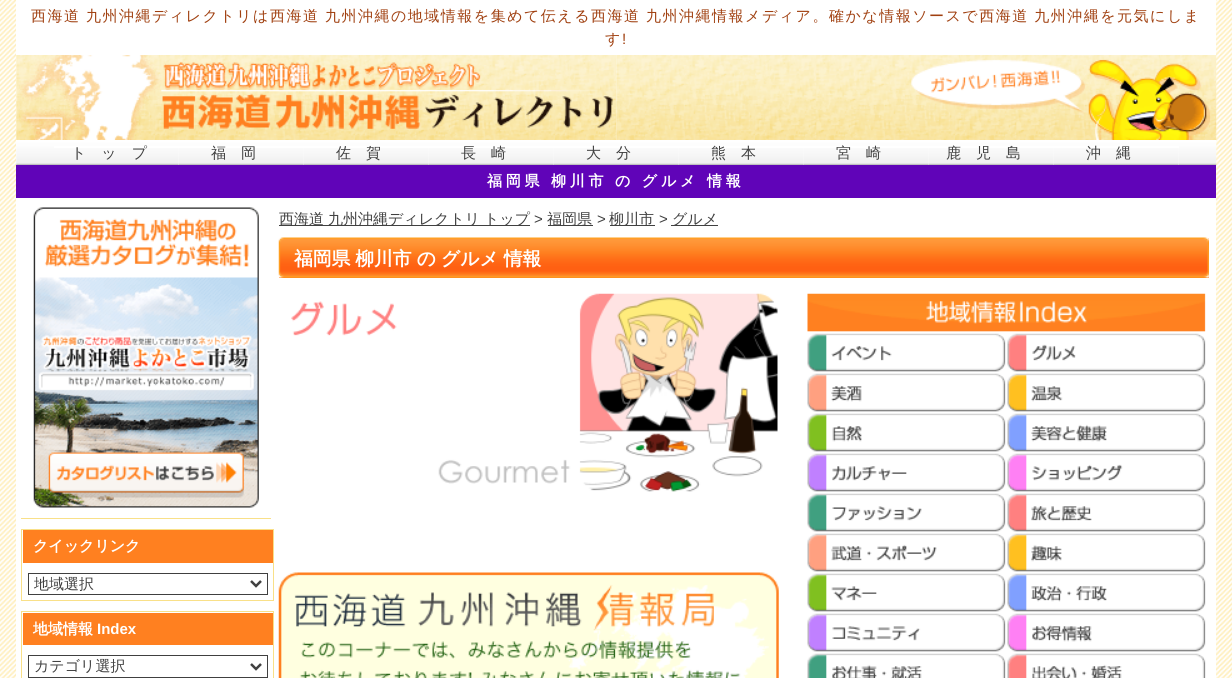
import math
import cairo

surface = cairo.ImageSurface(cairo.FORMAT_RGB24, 1232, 678)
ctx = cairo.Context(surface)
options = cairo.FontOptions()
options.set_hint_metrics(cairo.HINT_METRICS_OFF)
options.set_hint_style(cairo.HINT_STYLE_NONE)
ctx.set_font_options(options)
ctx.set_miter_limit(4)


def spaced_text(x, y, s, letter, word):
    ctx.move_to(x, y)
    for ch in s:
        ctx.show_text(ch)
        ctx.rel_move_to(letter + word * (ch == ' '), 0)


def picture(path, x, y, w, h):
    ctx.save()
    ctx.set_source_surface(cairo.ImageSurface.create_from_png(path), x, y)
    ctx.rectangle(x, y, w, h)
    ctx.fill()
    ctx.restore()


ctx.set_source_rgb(1, 1, 1)
ctx.paint()
picture("img1.png", 0, 0, 1232, 678)
ctx.set_source_rgb(1, 1, 1)
ctx.rectangle(16, 0, 1200, 678)
ctx.fill()
ctx.select_font_face("WenQuanYi Zen Hei Medium")
ctx.set_font_size(15)
ctx.set_source_rgb(0.627, 0.251, 0.063)
spaced_text(31, 21, "西海道 九州沖縄ディレクトリは西海道 九州沖縄の地域情報を集めて伝える西海道 九州沖縄情報メディア。確かな情報ソースで西海道 九州沖縄を元気にしま", 1.5, -0.5)
spaced_text(605, 44, "す", 1.5, 0)
ctx.select_font_face("Liberation Sans")
spaced_text(622, 44, "!", 1.5, 0)
picture("img2.png", 616, 55, 601, 85)
picture("img3.png", 16, 55, 601, 85)
picture("img4.png", 16, 140, 1201, 25)
ctx.set_source_rgb(1, 1, 1)
ctx.rectangle(54, 146, 1125, 19)
ctx.fill()
picture("img5.png", 54, 148, 125, 17)
ctx.select_font_face("WenQuanYi Zen Hei Medium")
ctx.set_source_rgb(0.251, 0.251, 0.251)
spaced_text(71, 158, "トップ", 15, 0)
picture("img5.png", 179, 148, 125, 17)
spaced_text(211, 158, "福岡", 15, 0)
picture("img5.png", 304, 148, 125, 17)
spaced_text(336, 158, "佐賀", 15, 0)
picture("img5.png", 429, 148, 125, 17)
spaced_text(461, 158, "長崎", 15, 0)
picture("img5.png", 554, 148, 125, 17)
spaced_text(586, 158, "大分", 15, 0)
picture("img5.png", 679, 148, 125, 17)
spaced_text(711, 158, "熊本", 15, 0)
picture("img5.png", 804, 148, 125, 17)
spaced_text(836, 158, "宮崎", 15, 0)
picture("img5.png", 929, 148, 125, 17)
spaced_text(946, 158, "鹿児島", 15, 0)
picture("img5.png", 1054, 148, 125, 17)
spaced_text(1086, 158, "沖縄", 15, 0)
ctx.set_source_rgb(0.376, 0.016, 0.722)
ctx.rectangle(16, 165, 1200, 33)
ctx.fill()
ctx.select_font_face("WenQuanYi Zen Hei", cairo.FONT_SLANT_NORMAL, cairo.FONT_WEIGHT_BOLD)
ctx.set_source_rgb(1, 1, 1)
spaced_text(487, 186, "福岡県 柳川市 の グルメ 情報", 3.75, -0.5)
ctx.set_source_rgb(0.251, 0.251, 0.251)
ctx.rectangle(279, 225, 251, 1)
ctx.fill()
ctx.select_font_face("WenQuanYi Zen Hei Medium")
spaced_text(279, 224, "西海道 九州沖縄ディレクトリ トップ", 0, -0.5)
ctx.select_font_face("Liberation Sans")
ctx.move_to(534, 224)
ctx.show_text(">")
ctx.rectangle(548, 225, 45, 1)
ctx.fill()
ctx.select_font_face("WenQuanYi Zen Hei Medium")
ctx.move_to(547, 224)
ctx.show_text("福岡県")
ctx.select_font_face("Liberation Sans")
ctx.move_to(597, 224)
ctx.show_text(">")
ctx.rectangle(610, 225, 45, 1)
ctx.fill()
ctx.select_font_face("WenQuanYi Zen Hei Medium")
ctx.move_to(609, 224)
ctx.show_text("柳川市")
ctx.select_font_face("Liberation Sans")
ctx.move_to(659, 224)
ctx.show_text(">")
ctx.rectangle(671, 225, 47, 1)
ctx.fill()
ctx.select_font_face("WenQuanYi Zen Hei Medium")
ctx.move_to(672, 224)
ctx.show_text("グルメ")
ctx.set_source_rgb(1, 0.502, 0.125)
ctx.rectangle(279, 238, 930, 40)
ctx.fill()
picture("img6.png", 278, 237, 931, 41)
ctx.select_font_face("WenQuanYi Zen Hei", cairo.FONT_SLANT_NORMAL, cairo.FONT_WEIGHT_BOLD)
ctx.set_font_size(18.75)
ctx.set_source_rgb(1, 1, 1)
spaced_text(294, 265, "福岡県 柳川市 の グルメ 情報", 0, -0.5)
picture("img7.png", 291, 293, 487, 199)
picture("img8.png", 278, 572, 501, 106)
picture("img9.png", 807, 293, 399, 39)
picture("img10.png", 807, 333, 199, 39)
picture("img11.png", 1007, 333, 199, 39)
picture("img12.png", 807, 373, 199, 39)
picture("img13.png", 1007, 373, 199, 39)
picture("img14.png", 807, 413, 199, 39)
picture("img15.png", 1007, 413, 199, 39)
picture("img16.png", 807, 453, 199, 39)
picture("img17.png", 1007, 453, 199, 39)
picture("img18.png", 807, 493, 199, 39)
picture("img19.png", 1007, 493, 199, 39)
picture("img20.png", 807, 533, 199, 39)
picture("img21.png", 1007, 533, 199, 39)
picture("img22.png", 807, 573, 199, 39)
picture("img23.png", 1007, 573, 199, 39)
picture("img24.png", 807, 613, 199, 39)
picture("img25.png", 1007, 613, 199, 39)
picture("img26.png", 807, 653, 199, 25)
picture("img27.png", 1007, 653, 199, 25)
ctx.set_source_rgb(0.973, 0.878, 0.533)
ctx.rectangle(21, 518, 250, 1)
ctx.fill()
picture("img28.png", 33, 207, 226, 301)
ctx.rectangle(21.5, 529.5, 252, 71)
ctx.set_line_width(1)
ctx.stroke()
ctx.set_source_rgb(1, 0.502, 0.125)
ctx.rectangle(23, 530, 250, 33)
ctx.fill()
ctx.set_font_size(15)
ctx.set_source_rgb(1, 1, 1)
ctx.move_to(33, 551)
ctx.show_text("クイックリンク")
ctx.rectangle(28.5, 573.5, 239, 21)
ctx.set_source_rgb(0.251, 0.251, 0.251)
ctx.stroke()
ctx.new_path()
ctx.move_to(251, 581)
ctx.line_to(256, 586)
ctx.line_to(261, 581)
ctx.set_line_width(2.5)
ctx.stroke()
ctx.select_font_face("WenQuanYi Zen Hei Medium")
ctx.move_to(34, 589)
ctx.show_text("地域選択")
ctx.rectangle(21.5, 611.5, 252, 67)
ctx.set_source_rgb(0.973, 0.878, 0.533)
ctx.set_line_width(1)
ctx.stroke()
ctx.set_source_rgb(1, 0.502, 0.125)
ctx.rectangle(23, 613, 250, 32)
ctx.fill()
ctx.select_font_face("WenQuanYi Zen Hei", cairo.FONT_SLANT_NORMAL, cairo.FONT_WEIGHT_BOLD)
ctx.set_source_rgb(1, 1, 1)
ctx.move_to(33, 634)
ctx.show_text("地域情報")
ctx.select_font_face("Liberation Sans", cairo.FONT_SLANT_NORMAL, cairo.FONT_WEIGHT_BOLD)
ctx.move_to(97, 634)
ctx.show_text("Index")
ctx.rectangle(28.5, 655.5, 239, 22)
ctx.set_source_rgb(0.251, 0.251, 0.251)
ctx.stroke()
ctx.new_path()
ctx.move_to(251, 664)
ctx.line_to(256, 669)
ctx.line_to(261, 664)
ctx.set_line_width(2.5)
ctx.stroke()
ctx.select_font_face("WenQuanYi Zen Hei Medium")
ctx.move_to(34, 671)
ctx.show_text("カテゴリ選択")
surface.write_to_png("page.png")
